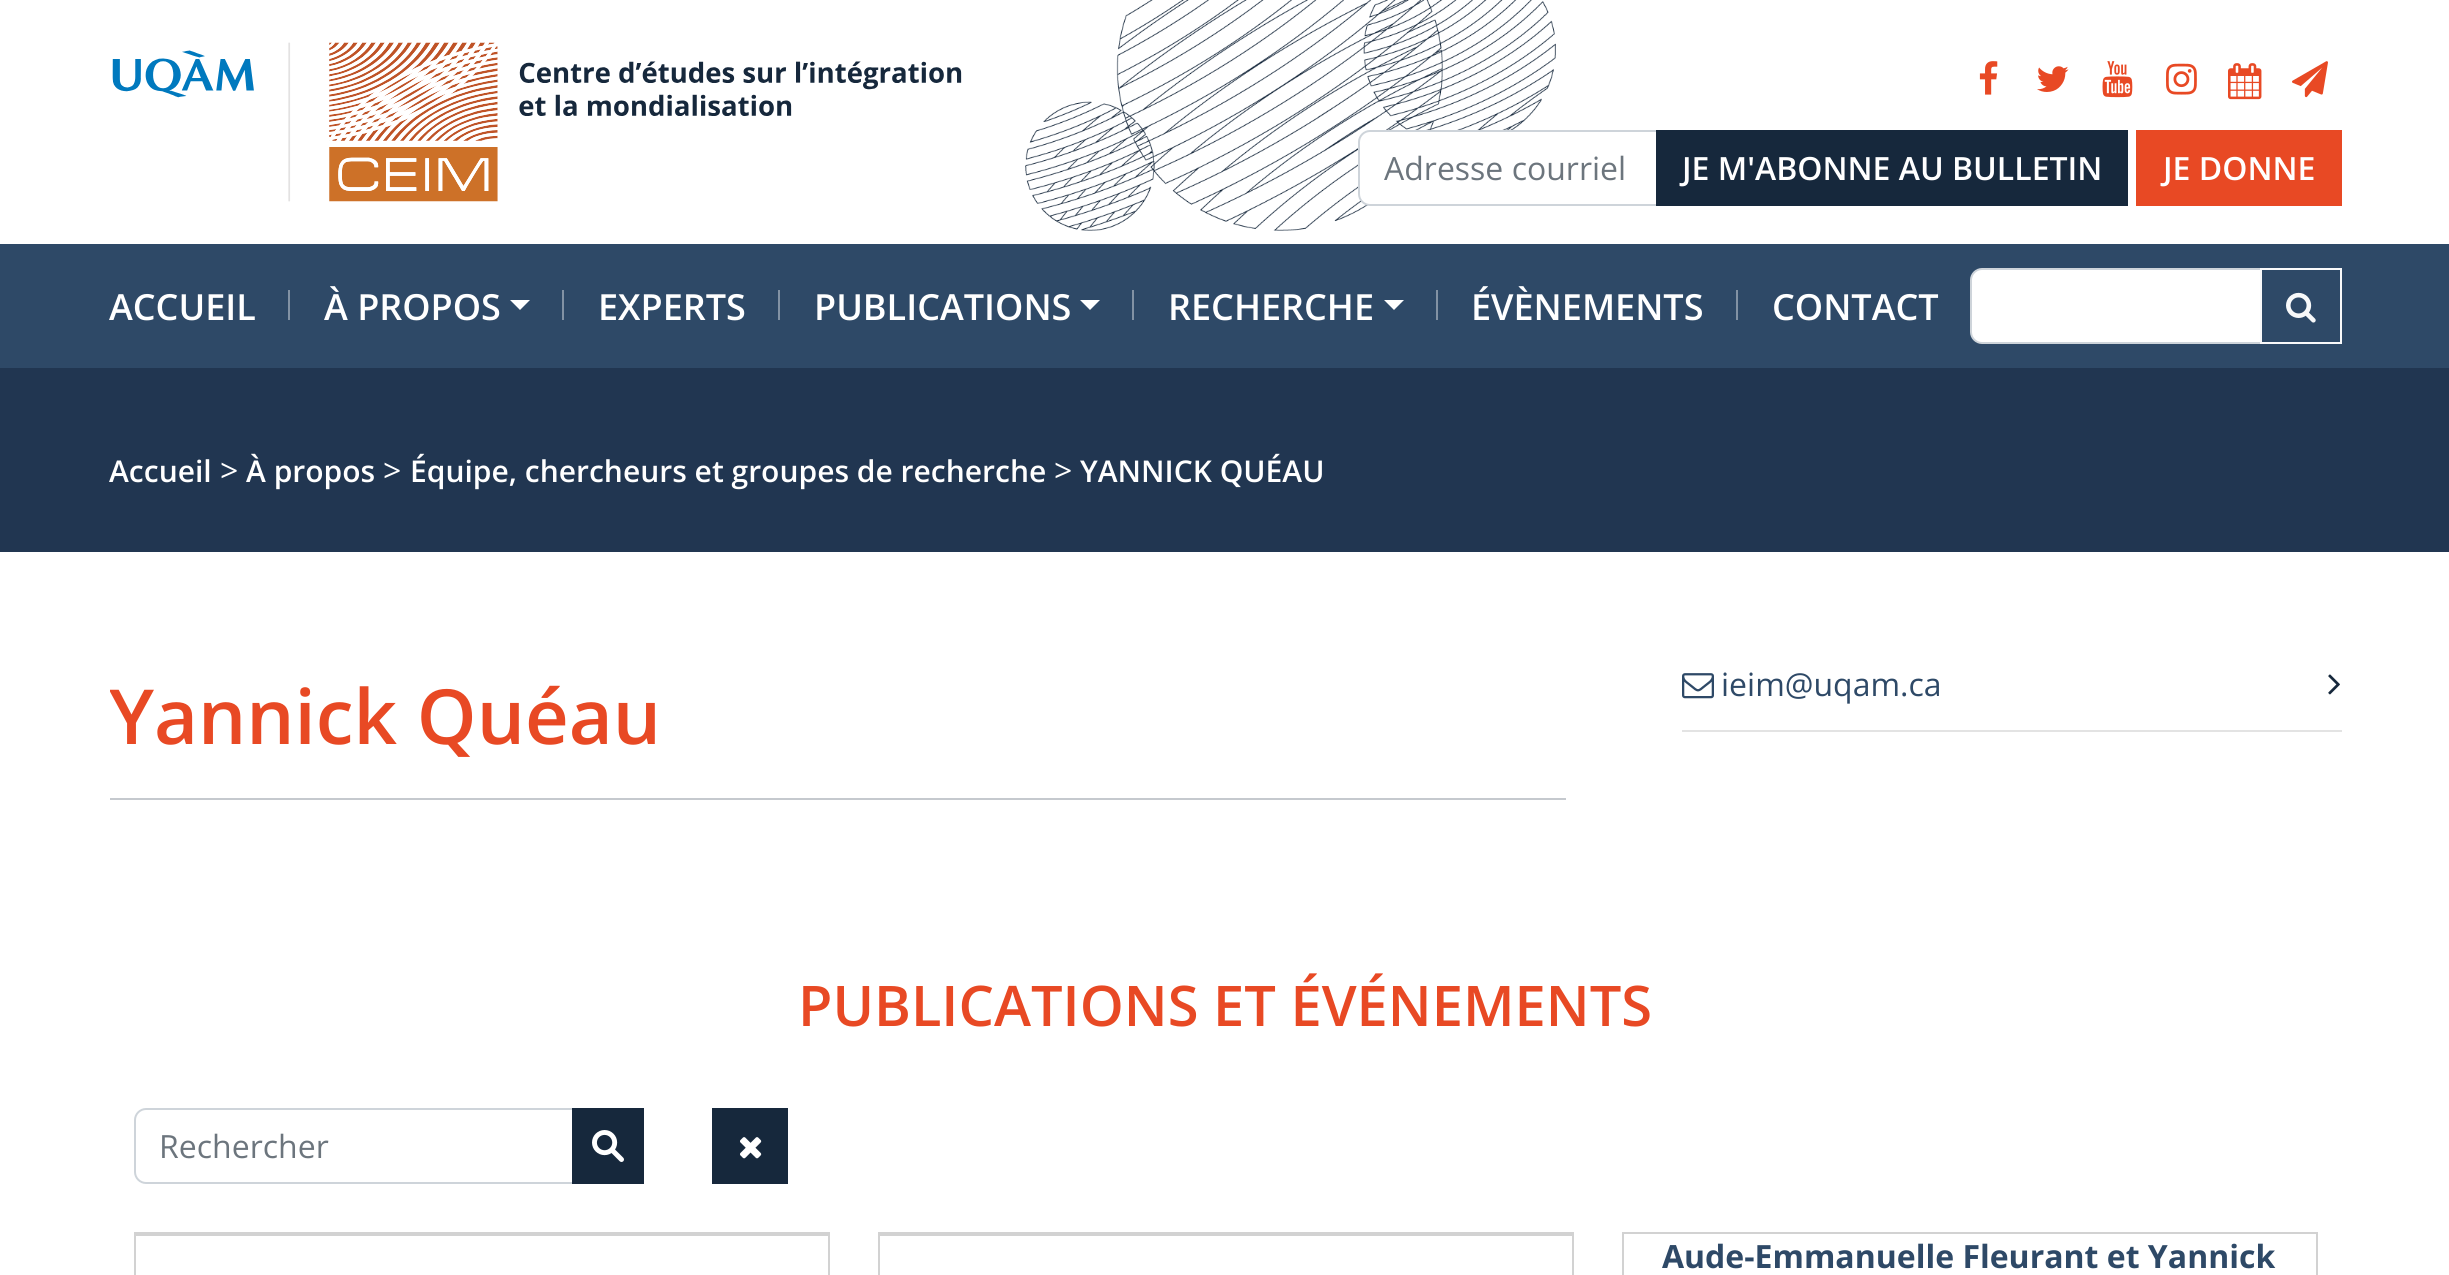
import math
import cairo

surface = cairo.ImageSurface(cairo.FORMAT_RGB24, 2449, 1275)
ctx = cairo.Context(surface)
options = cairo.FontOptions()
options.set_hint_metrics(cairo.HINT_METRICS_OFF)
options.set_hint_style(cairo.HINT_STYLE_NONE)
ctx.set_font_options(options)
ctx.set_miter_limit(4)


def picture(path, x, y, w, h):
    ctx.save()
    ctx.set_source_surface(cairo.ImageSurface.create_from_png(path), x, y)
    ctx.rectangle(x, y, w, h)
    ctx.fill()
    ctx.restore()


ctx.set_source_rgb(1, 1, 1)
ctx.paint()
picture("img1.png", 1025, 0, 531, 231)
picture("img2.png", 112, 42, 850, 160)
picture("img3.png", 1979, 61, 19, 34)
picture("img4.png", 2037, 66, 32, 26)
picture("img5.png", 2102, 61, 31, 37)
picture("img6.png", 2166, 63, 31, 32)
picture("img7.png", 2228, 63, 34, 37)
picture("img8.png", 2292, 61, 36, 37)
ctx.set_source_rgb(1, 1, 1)
ctx.new_path()
ctx.move_to(1370, 131)
ctx.line_to(1657, 131)
ctx.line_to(1657, 205)
ctx.line_to(1370, 205)
ctx.curve_to(1364, 205, 1359, 200, 1359, 194)
ctx.line_to(1359, 142)
ctx.curve_to(1359, 136, 1364, 131, 1370, 131)
ctx.close_path()
ctx.fill_preserve()
ctx.set_source_rgb(0.808, 0.831, 0.855)
ctx.stroke()
ctx.select_font_face("Open Sans")
ctx.set_font_size(32)
ctx.set_source_rgb(0.424, 0.459, 0.49)
ctx.move_to(1384, 180)
ctx.show_text("Adresse courriel")
ctx.set_source_rgb(0.086, 0.157, 0.235)
ctx.rectangle(1656, 130, 472, 76)
ctx.fill()
ctx.select_font_face("Open Sans SemiBold")
ctx.set_source_rgb(1, 1, 1)
ctx.move_to(1682, 180)
ctx.show_text("JE M'ABONNE AU BULLETIN")
ctx.set_source_rgb(0.91, 0.286, 0.141)
ctx.rectangle(2136, 130, 206, 76)
ctx.fill()
ctx.set_source_rgb(1, 1, 1)
ctx.move_to(2163, 180)
ctx.show_text("JE DONNE")
ctx.set_source_rgb(0.18, 0.286, 0.404)
ctx.rectangle(0, 244, 2449, 124)
ctx.fill()
ctx.set_font_size(36)
ctx.set_source_rgb(1, 1, 1)
ctx.move_to(109, 320)
ctx.show_text("ACCUEIL")
ctx.set_source_rgb(0.51, 0.573, 0.643)
ctx.rectangle(288, 290, 2, 30)
ctx.fill()
ctx.set_source_rgb(1, 1, 1)
ctx.move_to(324, 320)
ctx.show_text("À PROPOS")
ctx.new_path()
ctx.move_to(510, 300)
ctx.line_to(530, 300)
ctx.line_to(520, 310)
ctx.close_path()
ctx.fill()
ctx.set_source_rgb(0.51, 0.573, 0.643)
ctx.rectangle(562, 290, 2, 30)
ctx.fill()
ctx.set_source_rgb(1, 1, 1)
ctx.move_to(598, 320)
ctx.show_text("EXPERTS")
ctx.set_source_rgb(0.51, 0.573, 0.643)
ctx.rectangle(778, 290, 2, 30)
ctx.fill()
ctx.set_source_rgb(1, 1, 1)
ctx.move_to(814, 320)
ctx.show_text("PUBLICATIONS")
ctx.new_path()
ctx.move_to(1080, 300)
ctx.line_to(1100, 300)
ctx.line_to(1090, 310)
ctx.close_path()
ctx.fill()
ctx.set_source_rgb(0.51, 0.573, 0.643)
ctx.rectangle(1132, 290, 2, 30)
ctx.fill()
ctx.set_source_rgb(1, 1, 1)
ctx.move_to(1168, 320)
ctx.show_text("RECHERCHE")
ctx.new_path()
ctx.move_to(1384, 300)
ctx.line_to(1404, 300)
ctx.line_to(1394, 310)
ctx.close_path()
ctx.fill()
ctx.set_source_rgb(0.51, 0.573, 0.643)
ctx.rectangle(1436, 290, 2, 30)
ctx.fill()
ctx.set_source_rgb(1, 1, 1)
ctx.move_to(1471, 320)
ctx.show_text("ÉVÈNEMENTS")
ctx.set_source_rgb(0.51, 0.573, 0.643)
ctx.rectangle(1736, 290, 2, 30)
ctx.fill()
ctx.set_source_rgb(1, 1, 1)
ctx.move_to(1772, 320)
ctx.show_text("CONTACT")
ctx.new_path()
ctx.move_to(1982, 269)
ctx.line_to(2261, 269)
ctx.line_to(2261, 343)
ctx.line_to(1982, 343)
ctx.curve_to(1976, 343, 1971, 338, 1971, 332)
ctx.line_to(1971, 280)
ctx.curve_to(1971, 274, 1976, 269, 1982, 269)
ctx.close_path()
ctx.fill_preserve()
ctx.set_source_rgb(0.808, 0.831, 0.855)
ctx.stroke()
ctx.rectangle(2261, 269, 80, 74)
ctx.set_source_rgb(0.973, 0.976, 0.98)
ctx.stroke()
picture("img9.png", 2286, 292, 30, 31)
ctx.set_source_rgb(0.129, 0.212, 0.318)
ctx.rectangle(0, 368, 2449, 184)
ctx.fill()
ctx.set_font_size(30)
ctx.set_source_rgb(1, 1, 1)
ctx.move_to(109, 482)
ctx.show_text("Accueil")
ctx.select_font_face("Open Sans")
ctx.set_font_size(32)
ctx.move_to(220, 482)
ctx.show_text(">")
ctx.select_font_face("Open Sans SemiBold")
ctx.set_font_size(30)
ctx.move_to(246, 482)
ctx.show_text("À propos")
ctx.select_font_face("Open Sans")
ctx.set_font_size(32)
ctx.move_to(383, 482)
ctx.show_text(">")
ctx.select_font_face("Open Sans SemiBold")
ctx.set_font_size(30)
ctx.move_to(410, 482)
ctx.show_text("Équipe, chercheurs et groupes de recherche")
ctx.select_font_face("Open Sans")
ctx.set_font_size(32)
ctx.move_to(1054, 482)
ctx.show_text(">")
ctx.select_font_face("Open Sans SemiBold")
ctx.set_font_size(30)
ctx.move_to(1080, 482)
ctx.show_text("YANNICK QUÉAU")
ctx.save()
ctx.rectangle(110, 662, 1456, 188)
ctx.clip()
ctx.set_font_size(76)
ctx.set_source_rgb(0.91, 0.286, 0.141)
ctx.move_to(109, 744)
ctx.show_text("Yannick Quéau")
ctx.restore()
ctx.set_source_rgb(0.773, 0.788, 0.808)
ctx.rectangle(110, 798, 1456, 2)
ctx.fill()
ctx.set_source_rgb(0.89, 0.89, 0.89)
ctx.rectangle(1682, 730, 660, 2)
ctx.fill()
picture("img10.png", 1682, 673, 32, 26)
ctx.select_font_face("Open Sans")
ctx.set_font_size(32)
ctx.set_source_rgb(0.18, 0.286, 0.404)
ctx.move_to(1721, 696)
ctx.show_text("ieim@uqam.ca")
picture("img11.png", 2328, 674, 12, 21)
ctx.select_font_face("Open Sans SemiBold")
ctx.set_font_size(56)
ctx.set_source_rgb(0.91, 0.286, 0.141)
ctx.move_to(798, 1026)
ctx.show_text("PUBLICATIONS ET ÉVÉNEMENTS")
ctx.new_path()
ctx.move_to(146, 1109)
ctx.line_to(573, 1109)
ctx.line_to(573, 1183)
ctx.line_to(146, 1183)
ctx.curve_to(140, 1183, 135, 1178, 135, 1172)
ctx.line_to(135, 1120)
ctx.curve_to(135, 1114, 140, 1109, 146, 1109)
ctx.close_path()
ctx.set_source_rgb(0.808, 0.831, 0.855)
ctx.stroke()
ctx.select_font_face("Open Sans")
ctx.set_font_size(32)
ctx.set_source_rgb(0.424, 0.459, 0.49)
ctx.move_to(159, 1158)
ctx.show_text("Rechercher")
ctx.set_source_rgb(0.086, 0.157, 0.235)
ctx.rectangle(572, 1108, 72, 76)
ctx.fill()
picture("img12.png", 592, 1130, 32, 32)
ctx.rectangle(712, 1108, 76, 76)
ctx.fill()
picture("img13.png", 740, 1137, 22, 22)
ctx.rectangle(135, 1233, 694, 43)
ctx.set_source_rgb(0.824, 0.824, 0.824)
ctx.stroke()
ctx.rectangle(136, 1234, 692, 2)
ctx.fill()
ctx.rectangle(879, 1233, 694, 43)
ctx.stroke()
ctx.rectangle(880, 1234, 692, 2)
ctx.fill()
ctx.rectangle(1623, 1233, 694, 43)
ctx.stroke()
ctx.select_font_face("Open Sans", cairo.FONT_SLANT_NORMAL, cairo.FONT_WEIGHT_BOLD)
ctx.set_source_rgb(0.18, 0.286, 0.404)
ctx.move_to(1662, 1268)
ctx.show_text("Aude-Emmanuelle Fleurant et Yannick")
surface.write_to_png("page.png")
